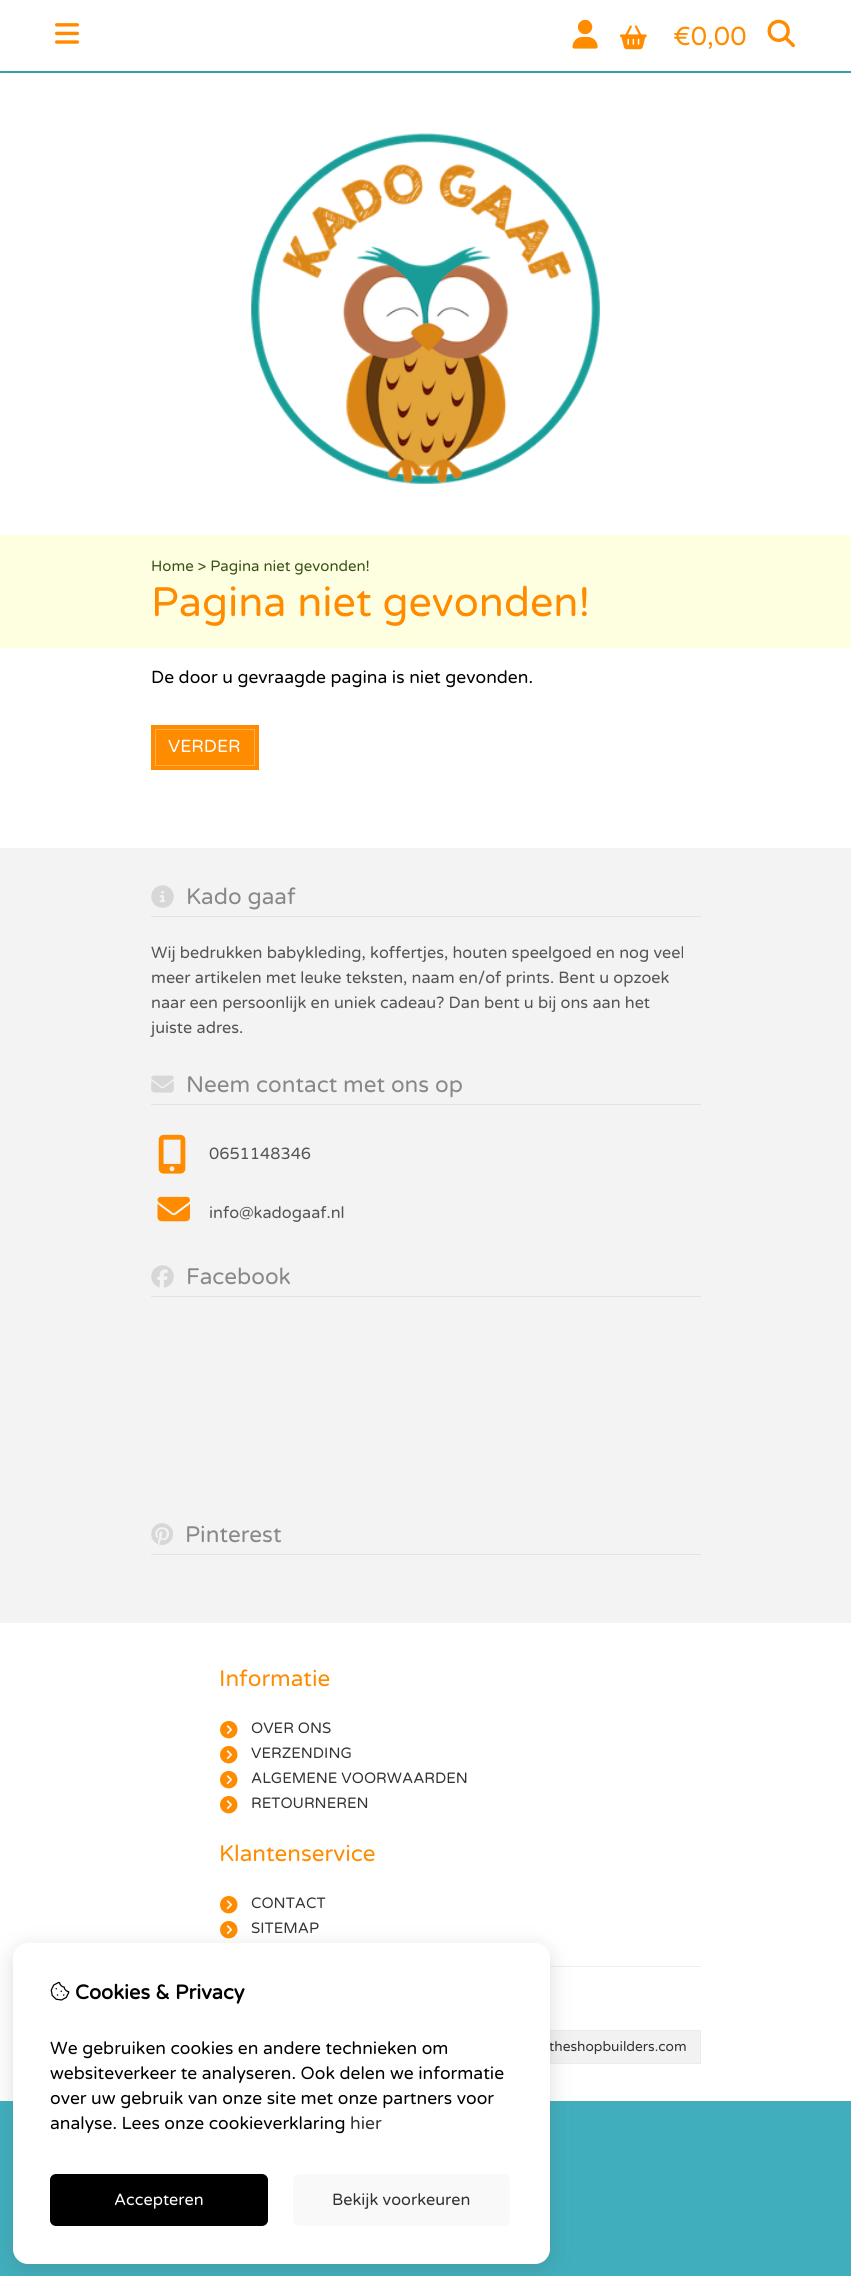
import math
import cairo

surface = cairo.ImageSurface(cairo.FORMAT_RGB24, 851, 2276)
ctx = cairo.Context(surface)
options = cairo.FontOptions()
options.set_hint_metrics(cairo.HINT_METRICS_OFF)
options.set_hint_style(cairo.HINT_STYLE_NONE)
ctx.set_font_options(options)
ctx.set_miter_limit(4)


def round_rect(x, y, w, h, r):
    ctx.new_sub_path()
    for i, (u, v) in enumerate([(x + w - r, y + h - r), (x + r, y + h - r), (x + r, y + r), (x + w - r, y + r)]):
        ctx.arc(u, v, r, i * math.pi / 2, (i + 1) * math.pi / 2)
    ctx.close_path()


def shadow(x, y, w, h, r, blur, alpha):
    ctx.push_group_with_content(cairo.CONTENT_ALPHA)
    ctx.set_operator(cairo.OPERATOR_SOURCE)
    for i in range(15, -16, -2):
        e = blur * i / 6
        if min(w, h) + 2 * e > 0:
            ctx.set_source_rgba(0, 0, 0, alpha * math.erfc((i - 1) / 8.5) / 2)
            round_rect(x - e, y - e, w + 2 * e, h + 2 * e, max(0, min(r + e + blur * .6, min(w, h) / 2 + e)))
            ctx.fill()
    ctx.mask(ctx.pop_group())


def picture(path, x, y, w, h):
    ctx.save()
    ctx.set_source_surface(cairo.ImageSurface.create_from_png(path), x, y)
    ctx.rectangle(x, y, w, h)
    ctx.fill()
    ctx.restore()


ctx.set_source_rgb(0.251, 0.682, 0.741)
ctx.paint()
ctx.set_source_rgb(0, 0, 0)
shadow(0, 0, 851, 71, 0, 12.5, 0.2)
ctx.set_source_rgb(1, 1, 1)
ctx.rectangle(0, 0, 851, 71)
ctx.fill()
picture("img1.png", 55, 23, 25, 21)
picture("img2.png", 572, 19, 26, 30)
picture("img3.png", 620, 25, 27, 25)
ctx.select_font_face("Varela Round")
ctx.set_font_size(26)
ctx.set_source_rgb(1, 0.549, 0)
ctx.move_to(673, 45)
ctx.show_text("€0,00")
picture("img4.png", 767, 19, 28, 29)
ctx.set_source_rgb(1, 1, 1)
ctx.rectangle(0, 73, 851, 2028)
ctx.fill()
picture("img5.png", 251, 133, 349, 351)
ctx.set_source_rgb(0.996, 1, 0.878)
ctx.rectangle(0, 535, 851, 113)
ctx.fill()
ctx.set_font_size(15)
ctx.set_source_rgb(0.22, 0.322, 0.09)
ctx.move_to(151, 571)
ctx.show_text("Home > Pagina niet gevonden!")
ctx.set_font_size(41.25)
ctx.set_source_rgb(1, 0.549, 0)
ctx.move_to(151, 616)
ctx.show_text("Pagina niet gevonden!")
ctx.set_font_size(17.5)
ctx.set_source_rgb(0, 0, 0)
ctx.move_to(151, 683)
ctx.show_text("De door u gevraagde pagina is niet gevonden.")
ctx.set_source_rgb(1, 0.549, 0)
ctx.rectangle(151, 725, 108, 45)
ctx.fill()
ctx.rectangle(155.5, 729.5, 99, 36)
ctx.set_source_rgb(1, 0.686, 0.302)
ctx.set_line_width(1)
ctx.stroke()
ctx.set_source_rgb(1, 1, 1)
ctx.move_to(168, 752)
ctx.show_text("VERDER")
ctx.set_source_rgb(0.953, 0.953, 0.953)
ctx.rectangle(0, 848, 851, 775)
ctx.fill()
ctx.set_source_rgb(0.89, 0.89, 0.89)
ctx.rectangle(151, 916, 550, 1)
ctx.fill()
picture("img6.png", 151, 885, 23, 23)
ctx.set_font_size(22.5)
ctx.set_source_rgb(0.533, 0.533, 0.533)
ctx.move_to(186, 904)
ctx.show_text("Kado gaaf")
ctx.set_font_size(16.25)
ctx.set_source_rgb(0.333, 0.333, 0.333)
ctx.move_to(151, 958)
ctx.show_text("Wij bedrukken babykleding, koffertjes, houten speelgoed en nog veel")
ctx.move_to(151, 983)
ctx.show_text("meer artikelen met leuke teksten, naam en/of prints. Bent u opzoek")
ctx.move_to(151, 1008)
ctx.show_text("naar een persoonlijk en uniek cadeau? Dan bent u bij ons aan het")
ctx.move_to(151, 1033)
ctx.show_text("juiste adres.")
ctx.set_source_rgb(0.89, 0.89, 0.89)
ctx.rectangle(151, 1104, 550, 1)
ctx.fill()
picture("img7.png", 151, 1075, 23, 18)
ctx.set_font_size(22.5)
ctx.set_source_rgb(0.533, 0.533, 0.533)
ctx.move_to(186, 1092)
ctx.show_text("Neem contact met ons op")
picture("img8.png", 158, 1134, 28, 40)
ctx.set_font_size(16.25)
ctx.set_source_rgb(0.333, 0.333, 0.333)
ctx.move_to(209, 1159)
ctx.show_text("0651148346")
picture("img9.png", 157, 1196, 33, 26)
ctx.move_to(209, 1218)
ctx.show_text("info@kadogaaf.nl")
ctx.set_source_rgb(0.89, 0.89, 0.89)
ctx.rectangle(151, 1296, 550, 1)
ctx.fill()
picture("img10.png", 151, 1265, 23, 23)
ctx.set_font_size(22.5)
ctx.set_source_rgb(0.533, 0.533, 0.533)
ctx.move_to(186, 1284)
ctx.show_text("Facebook")
ctx.set_source_rgb(0.89, 0.89, 0.89)
ctx.rectangle(151, 1554, 550, 1)
ctx.fill()
picture("img11.png", 151, 1523, 22, 22)
ctx.set_source_rgb(0.533, 0.533, 0.533)
ctx.move_to(185, 1542)
ctx.show_text("Pinterest")
ctx.set_source_rgb(1, 0.549, 0)
ctx.move_to(219, 1686)
ctx.show_text("Informatie")
picture("img12.png", 220, 1720, 18, 19)
ctx.set_font_size(15)
ctx.set_source_rgb(0.2, 0.2, 0.2)
ctx.move_to(251, 1733)
ctx.show_text("OVER ONS")
picture("img12.png", 220, 1745, 18, 19)
ctx.move_to(251, 1758)
ctx.show_text("VERZENDING")
picture("img12.png", 220, 1770, 18, 19)
ctx.move_to(251, 1783)
ctx.show_text("ALGEMENE VOORWAARDEN")
picture("img12.png", 220, 1795, 18, 19)
ctx.move_to(251, 1808)
ctx.show_text("RETOURNEREN")
ctx.set_font_size(22.5)
ctx.set_source_rgb(1, 0.549, 0)
ctx.move_to(219, 1861)
ctx.show_text("Klantenservice")
picture("img12.png", 220, 1895, 18, 19)
ctx.set_font_size(15)
ctx.set_source_rgb(0.2, 0.2, 0.2)
ctx.move_to(251, 1908)
ctx.show_text("CONTACT")
picture("img12.png", 220, 1920, 18, 19)
ctx.move_to(251, 1933)
ctx.show_text("SITEMAP")
ctx.set_source_rgb(0.933, 0.933, 0.933)
ctx.rectangle(550, 1966, 151, 1)
ctx.fill()
ctx.set_source_rgb(0.949, 0.949, 0.949)
ctx.rectangle(550, 2031, 150, 32)
ctx.fill()
ctx.rectangle(535.5, 2030.5, 165, 33)
ctx.set_source_rgb(0.922, 0.922, 0.922)
ctx.stroke()
ctx.set_font_size(13.75)
ctx.set_source_rgb(0.2, 0.2, 0.2)
ctx.move_to(549, 2051)
ctx.show_text("theshopbuilders.com")
ctx.set_source_rgb(0.298, 0.298, 0.298)
shadow(13, 1948, 537, 321, 15, 10.5, 0.2)
ctx.set_source_rgb(1, 1, 1)
round_rect(13, 1943, 537, 321, 15)
ctx.fill()
picture("img13.png", 50, 1981, 20, 20)
ctx.select_font_face("Varela Round", cairo.FONT_SLANT_NORMAL, cairo.FONT_WEIGHT_BOLD)
ctx.set_font_size(20)
ctx.set_source_rgb(0, 0, 0)
ctx.move_to(75, 1999)
ctx.show_text("Cookies & Privacy")
ctx.select_font_face("Varela Round")
ctx.set_font_size(17.5)
ctx.move_to(50, 2054)
ctx.show_text("We gebruiken cookies en andere technieken om")
ctx.move_to(50, 2079)
ctx.show_text("websiteverkeer te analyseren. Ook delen we informatie")
ctx.move_to(50, 2104)
ctx.show_text("over uw gebruik van onze site met onze partners voor")
ctx.move_to(50, 2129)
ctx.show_text("analyse. Lees onze cookieverklaring")
ctx.set_source_rgb(0.2, 0.2, 0.2)
ctx.move_to(350, 2129)
ctx.show_text("hier")
ctx.set_source_rgb(0, 0, 0)
round_rect(50, 2174, 218, 52, 6)
ctx.fill()
ctx.set_font_size(16.25)
ctx.set_source_rgb(1, 1, 1)
ctx.move_to(114, 2205)
ctx.show_text("Accepteren")
ctx.set_source_rgb(0.976, 0.976, 0.976)
round_rect(293, 2174, 217, 52, 6)
ctx.fill()
ctx.set_source_rgb(0.2, 0.2, 0.2)
ctx.move_to(332, 2205)
ctx.show_text("Bekijk voorkeuren")
surface.write_to_png("page.png")
